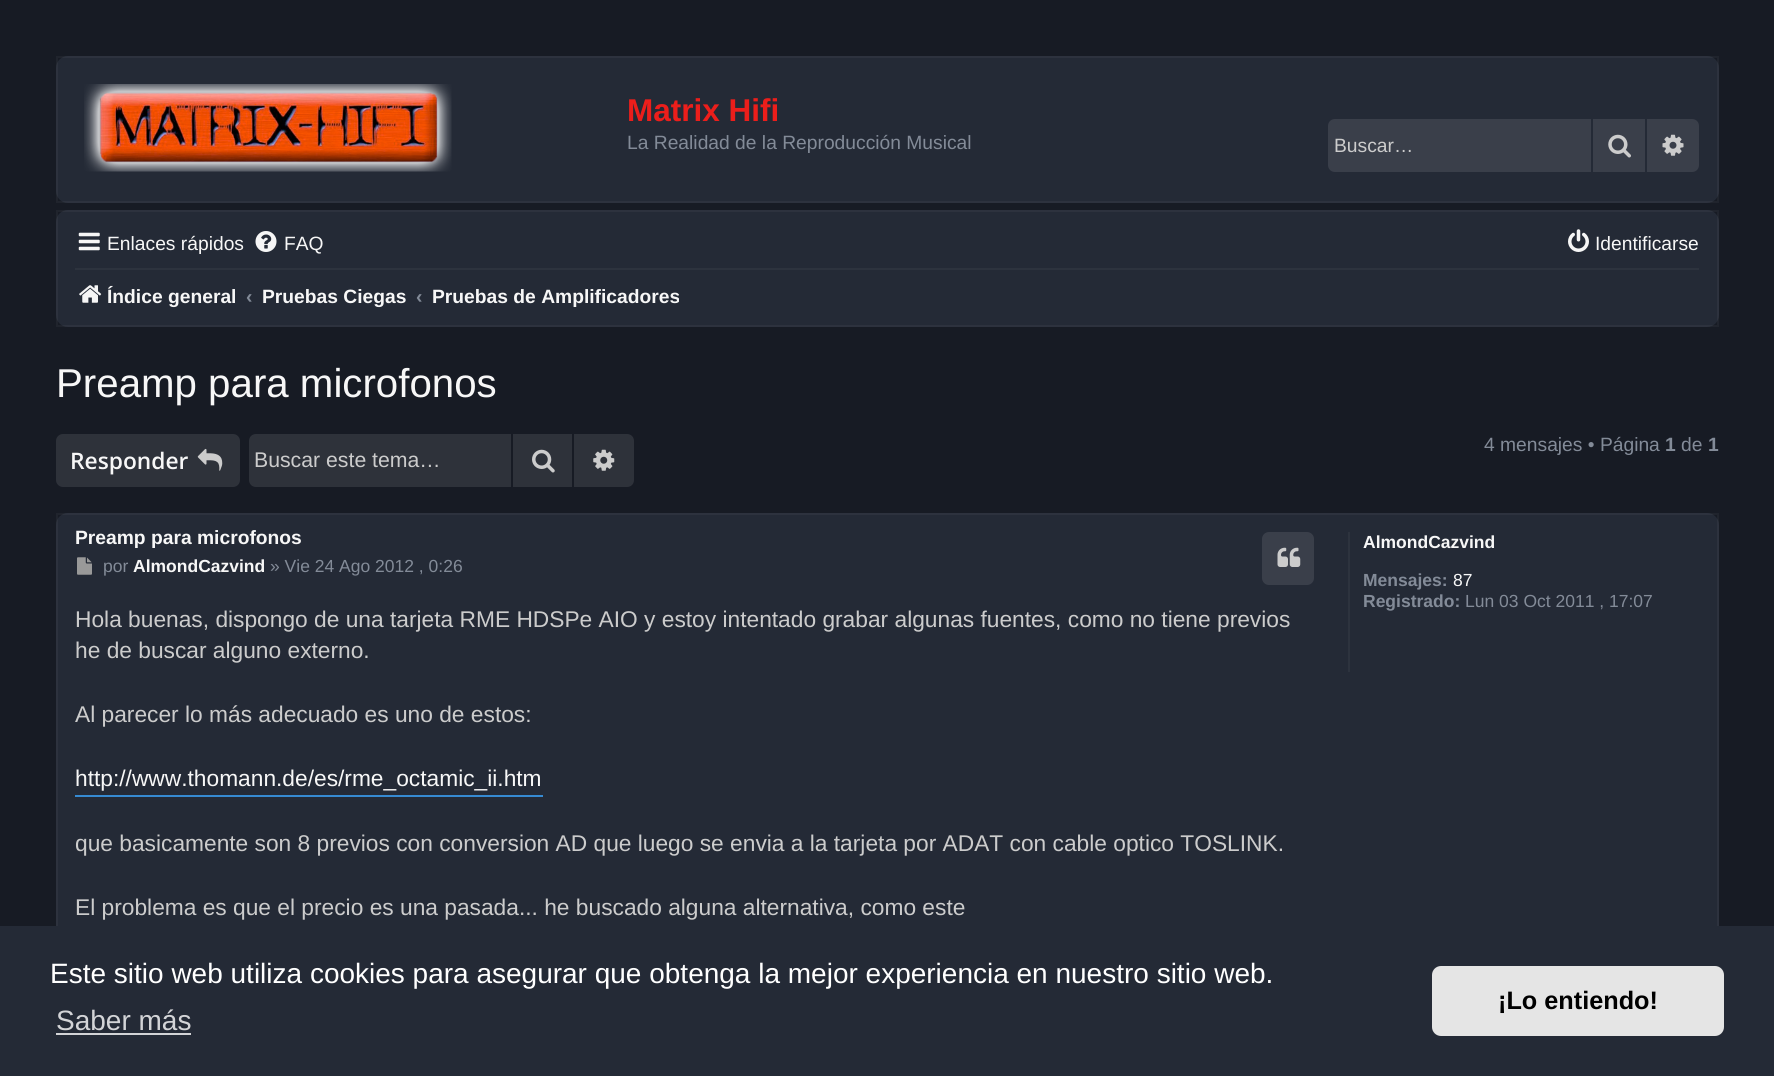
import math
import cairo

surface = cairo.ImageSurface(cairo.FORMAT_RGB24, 1774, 1076)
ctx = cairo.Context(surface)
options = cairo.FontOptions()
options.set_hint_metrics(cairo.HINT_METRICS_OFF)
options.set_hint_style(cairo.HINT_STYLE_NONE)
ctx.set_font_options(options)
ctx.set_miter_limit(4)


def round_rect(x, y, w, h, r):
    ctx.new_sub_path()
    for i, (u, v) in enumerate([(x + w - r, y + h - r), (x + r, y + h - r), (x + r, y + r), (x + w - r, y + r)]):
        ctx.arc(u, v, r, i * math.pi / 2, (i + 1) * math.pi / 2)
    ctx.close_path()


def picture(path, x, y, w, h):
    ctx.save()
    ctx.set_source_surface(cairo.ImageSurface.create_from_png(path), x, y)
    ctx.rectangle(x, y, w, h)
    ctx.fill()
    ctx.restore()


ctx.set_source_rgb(0.09, 0.106, 0.141)
ctx.paint()
ctx.set_source_rgb(0.141, 0.165, 0.212)
round_rect(56, 56, 1663, 147, 12)
ctx.fill()
ctx.rectangle(57, 57, 1661, 145)
ctx.set_source_rgba(1, 1, 1, 0.04)
ctx.stroke()
picture("img1.png", 84, 84, 368, 88)
ctx.select_font_face("Liberation Sans", cairo.FONT_SLANT_NORMAL, cairo.FONT_WEIGHT_BOLD)
ctx.set_font_size(31.5)
ctx.set_source_rgb(0.925, 0.118, 0.106)
ctx.move_to(627, 121)
ctx.show_text("Matrix Hifi")
ctx.select_font_face("Liberation Sans")
ctx.set_font_size(19.25)
ctx.set_source_rgb(0.514, 0.545, 0.596)
ctx.move_to(627, 149)
ctx.show_text("La Realidad de la Reproducción Musical")
ctx.set_source_rgb(0.227, 0.247, 0.29)
ctx.new_path()
ctx.move_to(1335, 119)
ctx.line_to(1591, 119)
ctx.line_to(1591, 172)
ctx.line_to(1335, 172)
ctx.curve_to(1331, 172, 1328, 169, 1328, 165)
ctx.line_to(1328, 126)
ctx.curve_to(1328, 122, 1331, 119, 1335, 119)
ctx.close_path()
ctx.fill()
ctx.set_source_rgb(0.8, 0.8, 0.8)
ctx.move_to(1334, 152)
ctx.show_text("Buscar…")
ctx.set_source_rgb(0.227, 0.247, 0.29)
ctx.rectangle(1593, 119, 52, 53)
ctx.fill()
picture("img2.png", 1608, 134, 23, 24)
ctx.new_path()
ctx.move_to(1647, 119)
ctx.line_to(1692, 119)
ctx.curve_to(1696, 119, 1699, 122, 1699, 126)
ctx.line_to(1699, 165)
ctx.curve_to(1699, 169, 1696, 172, 1692, 172)
ctx.line_to(1647, 172)
ctx.close_path()
ctx.fill()
picture("img3.png", 1662, 134, 22, 22)
ctx.set_source_rgb(0.141, 0.165, 0.212)
round_rect(56, 210, 1663, 117, 12)
ctx.fill()
ctx.rectangle(57, 211, 1661, 115)
ctx.set_source_rgba(1, 1, 1, 0.04)
ctx.stroke()
picture("img4.png", 78, 232, 22, 19)
ctx.set_source_rgb(0.965, 0.965, 0.965)
ctx.move_to(107, 250)
ctx.show_text("Enlaces rápidos")
picture("img5.png", 255, 231, 22, 21)
ctx.move_to(284, 250)
ctx.show_text("FAQ")
picture("img6.png", 1568, 229, 21, 23)
ctx.move_to(1595, 250)
ctx.show_text("Identificarse")
ctx.set_source_rgb(0.176, 0.2, 0.243)
ctx.rectangle(75, 268, 1624, 2)
ctx.fill()
picture("img7.png", 79, 285, 23, 18)
ctx.select_font_face("Liberation Sans", cairo.FONT_SLANT_NORMAL, cairo.FONT_WEIGHT_BOLD)
ctx.set_source_rgb(0.965, 0.965, 0.965)
ctx.move_to(107, 303)
ctx.show_text("Índice general")
ctx.set_source_rgb(0.514, 0.545, 0.596)
ctx.move_to(246, 303)
ctx.show_text("‹")
ctx.set_source_rgb(0.965, 0.965, 0.965)
ctx.move_to(262, 303)
ctx.show_text("Pruebas Ciegas")
ctx.set_source_rgb(0.514, 0.545, 0.596)
ctx.move_to(416, 303)
ctx.show_text("‹")
ctx.set_source_rgb(0.965, 0.965, 0.965)
ctx.move_to(432, 303)
ctx.show_text("Pruebas de Amplificadores")
ctx.select_font_face("Liberation Sans")
ctx.set_font_size(40.25)
ctx.move_to(56, 397)
ctx.show_text("Preamp para microfonos")
ctx.set_font_size(19.25)
ctx.set_source_rgb(0.514, 0.545, 0.596)
ctx.move_to(1484, 451)
ctx.show_text("4 mensajes • Página")
ctx.select_font_face("Liberation Sans", cairo.FONT_SLANT_NORMAL, cairo.FONT_WEIGHT_BOLD)
ctx.move_to(1665, 451)
ctx.show_text("1")
ctx.select_font_face("Liberation Sans")
ctx.move_to(1681, 451)
ctx.show_text("de")
ctx.select_font_face("Liberation Sans", cairo.FONT_SLANT_NORMAL, cairo.FONT_WEIGHT_BOLD)
ctx.move_to(1708, 451)
ctx.show_text("1")
ctx.set_source_rgb(0.18, 0.196, 0.227)
round_rect(56, 434, 184, 53, 7)
ctx.fill()
ctx.select_font_face("Open Sans SemiBold")
ctx.set_font_size(22.75)
ctx.set_source_rgb(0.965, 0.965, 0.965)
ctx.move_to(70, 469)
ctx.show_text("Responder")
picture("img8.png", 197, 448, 26, 23)
ctx.set_source_rgb(0.18, 0.196, 0.227)
ctx.new_path()
ctx.move_to(256, 434)
ctx.line_to(511, 434)
ctx.line_to(511, 487)
ctx.line_to(256, 487)
ctx.curve_to(252, 487, 249, 484, 249, 480)
ctx.line_to(249, 441)
ctx.curve_to(249, 437, 252, 434, 256, 434)
ctx.close_path()
ctx.fill()
ctx.select_font_face("Liberation Sans")
ctx.set_font_size(21.25)
ctx.set_source_rgb(0.8, 0.8, 0.8)
ctx.move_to(254, 467)
ctx.show_text("Buscar este tema…")
ctx.set_source_rgb(0.18, 0.196, 0.227)
ctx.rectangle(513, 434, 59, 53)
ctx.fill()
picture("img9.png", 532, 449, 23, 24)
ctx.new_path()
ctx.move_to(574, 434)
ctx.line_to(627, 434)
ctx.curve_to(631, 434, 634, 437, 634, 441)
ctx.line_to(634, 480)
ctx.curve_to(634, 484, 631, 487, 627, 487)
ctx.line_to(574, 487)
ctx.close_path()
ctx.fill()
picture("img10.png", 593, 449, 22, 22)
ctx.set_source_rgb(0.141, 0.165, 0.212)
round_rect(56, 513, 1663, 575, 12)
ctx.fill()
ctx.rectangle(57, 514, 1661, 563)
ctx.set_source_rgba(1, 1, 1, 0.04)
ctx.stroke()
ctx.select_font_face("Liberation Sans", cairo.FONT_SLANT_NORMAL, cairo.FONT_WEIGHT_BOLD)
ctx.set_font_size(19.25)
ctx.set_source_rgb(0.965, 0.965, 0.965)
ctx.move_to(75, 544)
ctx.show_text("Preamp para microfonos")
ctx.set_source_rgb(0.227, 0.247, 0.29)
round_rect(1262, 532, 52, 53, 7)
ctx.fill()
picture("img11.png", 1277, 547, 24, 20)
picture("img12.png", 77, 557, 15, 18)
ctx.select_font_face("Liberation Sans")
ctx.set_font_size(17.5)
ctx.set_source_rgb(0.514, 0.545, 0.596)
ctx.move_to(103, 572)
ctx.show_text("por")
ctx.select_font_face("Liberation Sans", cairo.FONT_SLANT_NORMAL, cairo.FONT_WEIGHT_BOLD)
ctx.set_source_rgb(0.965, 0.965, 0.965)
ctx.move_to(133, 572)
ctx.show_text("AlmondCazvind")
ctx.select_font_face("Liberation Sans")
ctx.set_source_rgb(0.514, 0.545, 0.596)
ctx.move_to(270, 572)
ctx.show_text("» Vie 24 Ago 2012 , 0:26")
ctx.set_font_size(22.75)
ctx.set_source_rgb(0.8, 0.8, 0.8)
ctx.move_to(75, 627)
ctx.show_text("Hola buenas, dispongo de una tarjeta RME HDSPe AIO y estoy intentado grabar algunas fuentes, como no tiene previos")
ctx.move_to(75, 658)
ctx.show_text("he de buscar alguno externo.")
ctx.move_to(75, 722)
ctx.show_text("Al parecer lo más adecuado es uno de estos:")
ctx.set_source_rgb(0.212, 0.541, 0.824)
ctx.rectangle(75, 795, 468, 2)
ctx.fill()
ctx.set_source_rgb(0.965, 0.965, 0.965)
ctx.move_to(75, 786)
ctx.show_text("http://www.thomann.de/es/rme_octamic_ii.htm")
ctx.set_source_rgb(0.8, 0.8, 0.8)
ctx.move_to(75, 851)
ctx.show_text("que basicamente son 8 previos con conversion AD que luego se envia a la tarjeta por ADAT con cable optico TOSLINK.")
ctx.move_to(75, 915)
ctx.show_text("El problema es que el precio es una pasada... he buscado alguna alternativa, como este")
ctx.set_source_rgb(0.176, 0.2, 0.243)
ctx.rectangle(1348, 532, 2, 140)
ctx.fill()
ctx.select_font_face("Liberation Sans", cairo.FONT_SLANT_NORMAL, cairo.FONT_WEIGHT_BOLD)
ctx.set_font_size(17.5)
ctx.set_source_rgb(0.965, 0.965, 0.965)
ctx.move_to(1363, 548)
ctx.show_text("AlmondCazvind")
ctx.set_source_rgb(0.514, 0.545, 0.596)
ctx.move_to(1363, 586)
ctx.show_text("Mensajes:")
ctx.select_font_face("Liberation Sans")
ctx.set_source_rgb(0.965, 0.965, 0.965)
ctx.move_to(1453, 586)
ctx.show_text("87")
ctx.select_font_face("Liberation Sans", cairo.FONT_SLANT_NORMAL, cairo.FONT_WEIGHT_BOLD)
ctx.set_source_rgb(0.514, 0.545, 0.596)
ctx.move_to(1363, 607)
ctx.show_text("Registrado:")
ctx.select_font_face("Liberation Sans")
ctx.move_to(1465, 607)
ctx.show_text("Lun 03 Oct 2011 , 17:07")
ctx.set_source_rgb(0.141, 0.165, 0.212)
ctx.rectangle(0, 926, 1774, 150)
ctx.fill()
ctx.set_font_size(28)
ctx.set_source_rgb(1, 1, 1)
ctx.move_to(50, 983)
ctx.show_text("Este sitio web utiliza cookies para asegurar que obtenga la mejor experiencia en nuestro sitio web.")
ctx.set_source_rgb(0.827, 0.831, 0.843)
ctx.move_to(56, 1030)
ctx.show_text("Saber más")
ctx.rectangle(56, 1033, 135, 2)
ctx.fill()
ctx.set_source_rgb(0.898, 0.898, 0.898)
round_rect(1432, 966, 292, 70, 9)
ctx.fill()
ctx.select_font_face("Liberation Sans", cairo.FONT_SLANT_NORMAL, cairo.FONT_WEIGHT_BOLD)
ctx.set_font_size(25.25)
ctx.set_source_rgb(0, 0, 0)
ctx.move_to(1498, 1009)
ctx.show_text("¡Lo entiendo!")
surface.write_to_png("page.png")
